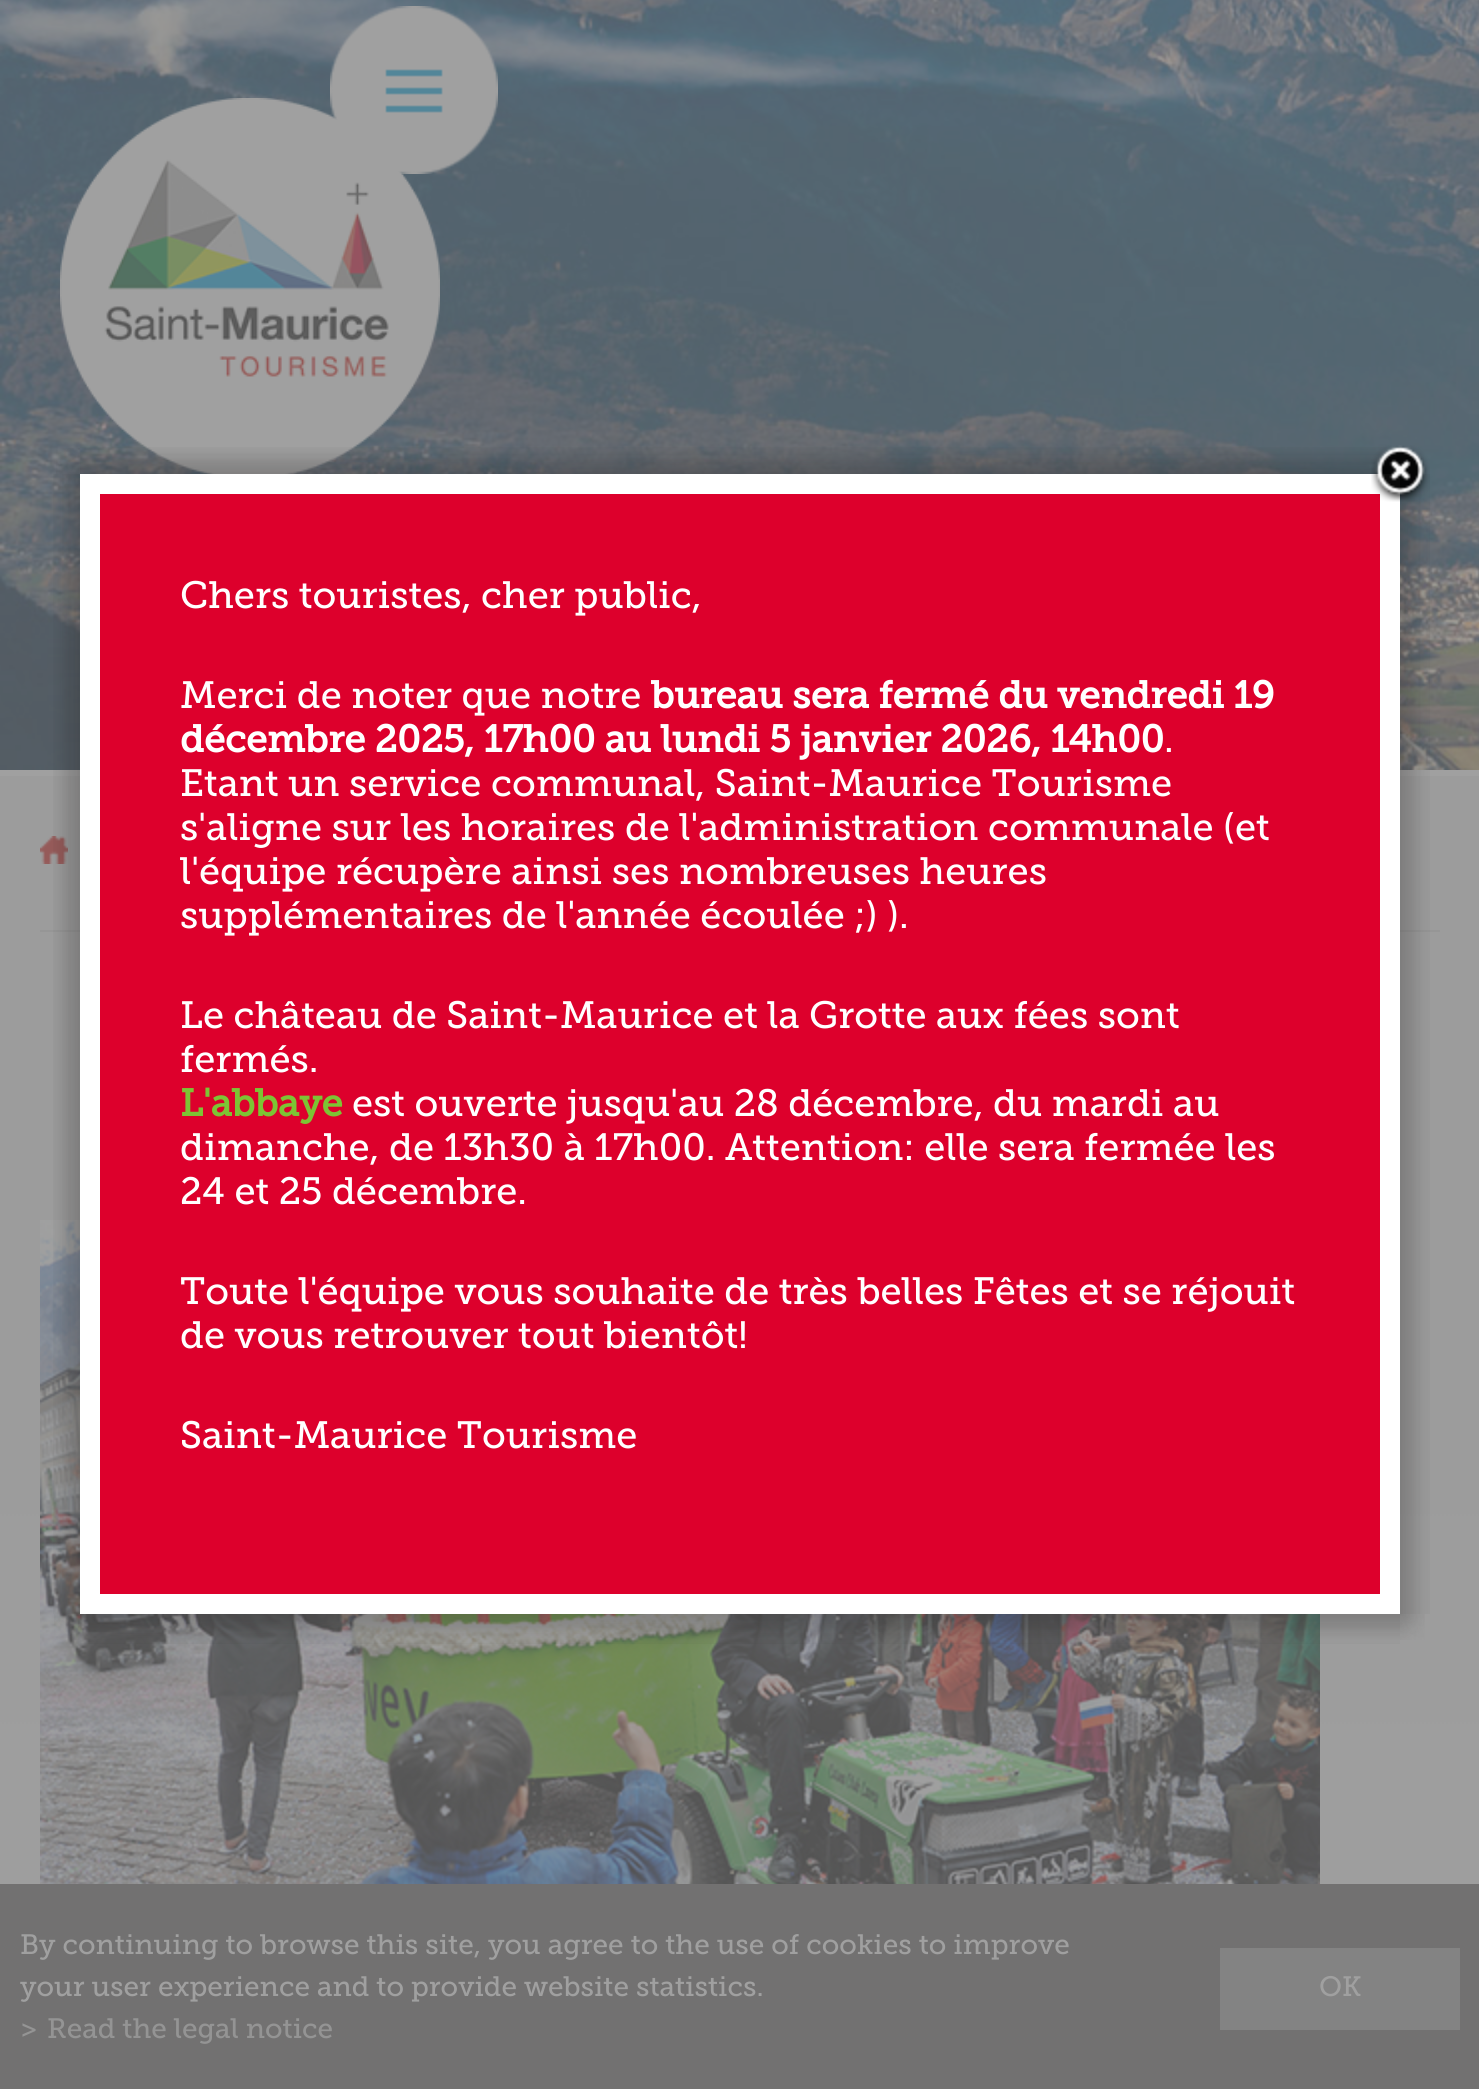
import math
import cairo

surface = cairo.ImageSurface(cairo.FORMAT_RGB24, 1479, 2089)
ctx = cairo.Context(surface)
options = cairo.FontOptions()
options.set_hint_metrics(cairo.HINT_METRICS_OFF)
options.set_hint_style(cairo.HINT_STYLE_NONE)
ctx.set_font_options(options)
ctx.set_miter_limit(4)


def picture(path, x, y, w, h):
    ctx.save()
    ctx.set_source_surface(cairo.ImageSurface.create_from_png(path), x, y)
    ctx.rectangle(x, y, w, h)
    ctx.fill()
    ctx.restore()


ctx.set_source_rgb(0.627, 0.627, 0.627)
ctx.paint()
picture("img1.png", 0, 0, 1479, 770)
picture("img2.png", 330, 6, 168, 168)
picture("img3.png", 60, 98, 380, 376)
picture("img4.png", 0, 776, 1479, 1108)
picture("img5.png", 40, 836, 28, 28)
ctx.set_source_rgb(0.588, 0.588, 0.588)
ctx.rectangle(40, 930, 1400, 2)
ctx.fill()
picture("img6.png", 40, 1220, 1280, 664)
ctx.set_source_rgb(1, 1, 1)
ctx.rectangle(80, 474, 1320, 1140)
ctx.fill()
picture("img7.png", 56, 448, 24, 26)
picture("img8.png", 80, 447, 1320, 27)
picture("img10.png", 1400, 453, 24, 21)
ctx.set_source_rgb(0.867, 0, 0.173)
ctx.rectangle(100, 494, 1280, 1100)
ctx.fill()
picture("img12.png", 1400, 474, 30, 1140)
picture("img9.png", 1371, 445, 59, 57)
picture("img11.png", 53, 474, 27, 1140)
ctx.select_font_face("Museo Slab")
ctx.set_font_size(38)
ctx.set_source_rgb(1, 1, 1)
ctx.move_to(180, 608)
ctx.show_text("Chers touristes, cher public,")
ctx.move_to(180, 708)
ctx.show_text("Merci de noter que notre")
ctx.select_font_face("Museo Slab", cairo.FONT_SLANT_NORMAL, cairo.FONT_WEIGHT_BOLD)
ctx.move_to(651, 708)
ctx.show_text("bureau sera fermé du vendredi 19")
ctx.move_to(180, 752)
ctx.show_text("décembre 2025, 17h00 au lundi 5 janvier 2026, 14h00")
ctx.select_font_face("Museo Slab")
ctx.move_to(1164, 752)
ctx.show_text(".")
ctx.move_to(180, 796)
ctx.show_text("Etant un service communal, Saint-Maurice Tourisme")
ctx.move_to(180, 840)
ctx.show_text("s'aligne sur les horaires de l'administration communale (et")
ctx.move_to(180, 884)
ctx.show_text("l'équipe récupère ainsi ses nombreuses heures")
ctx.move_to(180, 928)
ctx.show_text("supplémentaires de l'année écoulée ;) ).")
ctx.move_to(180, 1028)
ctx.show_text("Le château de Saint-Maurice et la Grotte aux fées sont")
ctx.move_to(180, 1072)
ctx.show_text("fermés.")
ctx.select_font_face("Museo Slab", cairo.FONT_SLANT_NORMAL, cairo.FONT_WEIGHT_BOLD)
ctx.set_source_rgb(0.49, 0.769, 0.204)
ctx.move_to(180, 1116)
ctx.show_text("L'abbaye")
ctx.select_font_face("Museo Slab")
ctx.set_source_rgb(1, 1, 1)
ctx.move_to(352, 1116)
ctx.show_text("est ouverte jusqu'au 28 décembre, du mardi au")
ctx.move_to(180, 1160)
ctx.show_text("dimanche, de 13h30 à 17h00. Attention: elle sera fermée les")
ctx.move_to(180, 1204)
ctx.show_text("24 et 25 décembre.")
ctx.move_to(180, 1304)
ctx.show_text("Toute l'équipe vous souhaite de très belles Fêtes et se réjouit")
ctx.move_to(180, 1348)
ctx.show_text("de vous retrouver tout bientôt!")
ctx.move_to(180, 1448)
ctx.show_text("Saint-Maurice Tourisme")
picture("img13.png", 54, 1614, 26, 26)
picture("img14.png", 80, 1614, 1320, 30)
picture("img15.png", 1400, 1614, 25, 26)
ctx.set_source_rgb(0.447, 0.443, 0.443)
ctx.rectangle(0, 1884, 1479, 205)
ctx.fill()
ctx.set_font_size(28)
ctx.set_source_rgb(0.627, 0.627, 0.627)
ctx.move_to(20, 1954)
ctx.show_text("By continuing to browse this site, you agree to the use of cookies to improve")
ctx.move_to(20, 1996)
ctx.show_text("your user experience and to provide website statistics.")
ctx.set_source_rgb(0.514, 0.514, 0.514)
ctx.rectangle(1220, 1948, 240, 82)
ctx.fill()
ctx.set_source_rgb(0.627, 0.627, 0.627)
ctx.move_to(1319, 1996)
ctx.show_text("OK")
ctx.set_source_rgb(0.58, 0.58, 0.58)
ctx.move_to(20, 2038)
ctx.show_text(">")
ctx.move_to(47, 2038)
ctx.show_text("Read the legal notice")
surface.write_to_png("page.png")
